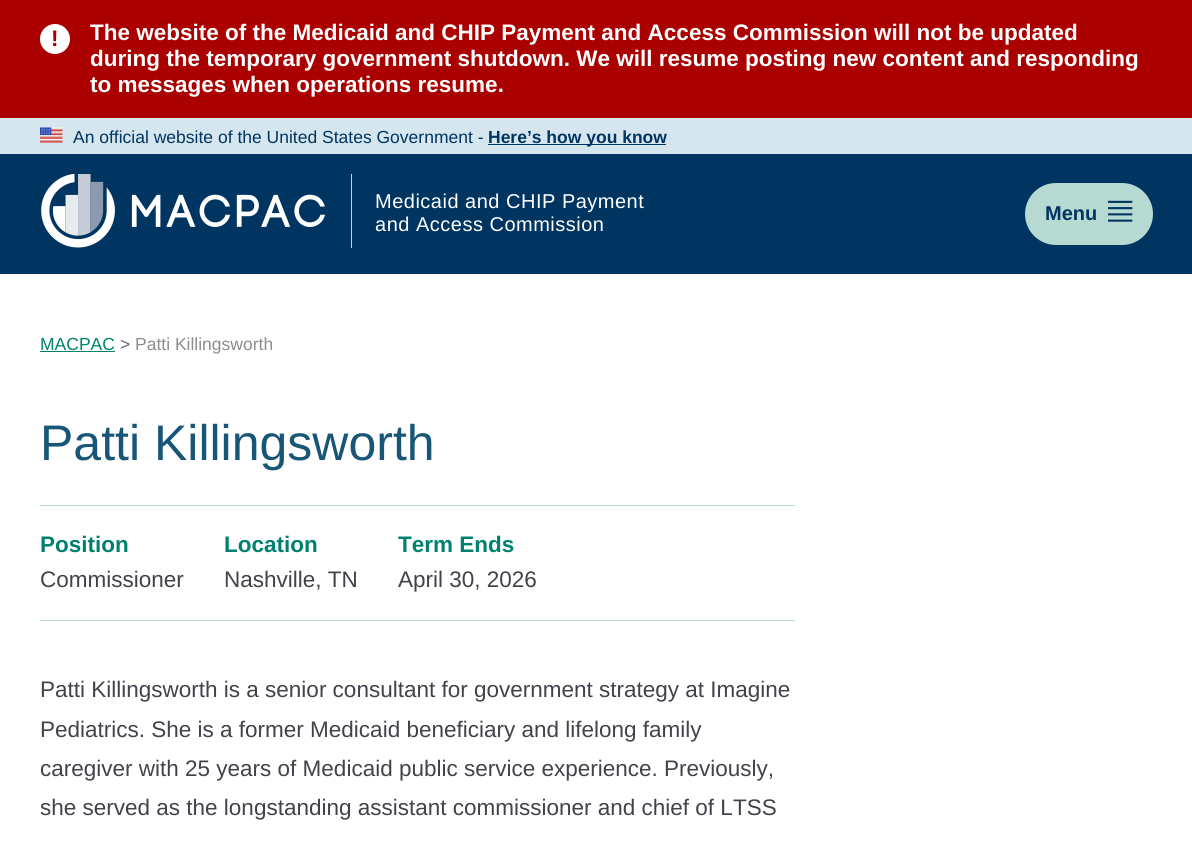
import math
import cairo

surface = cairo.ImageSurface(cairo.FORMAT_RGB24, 1192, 847)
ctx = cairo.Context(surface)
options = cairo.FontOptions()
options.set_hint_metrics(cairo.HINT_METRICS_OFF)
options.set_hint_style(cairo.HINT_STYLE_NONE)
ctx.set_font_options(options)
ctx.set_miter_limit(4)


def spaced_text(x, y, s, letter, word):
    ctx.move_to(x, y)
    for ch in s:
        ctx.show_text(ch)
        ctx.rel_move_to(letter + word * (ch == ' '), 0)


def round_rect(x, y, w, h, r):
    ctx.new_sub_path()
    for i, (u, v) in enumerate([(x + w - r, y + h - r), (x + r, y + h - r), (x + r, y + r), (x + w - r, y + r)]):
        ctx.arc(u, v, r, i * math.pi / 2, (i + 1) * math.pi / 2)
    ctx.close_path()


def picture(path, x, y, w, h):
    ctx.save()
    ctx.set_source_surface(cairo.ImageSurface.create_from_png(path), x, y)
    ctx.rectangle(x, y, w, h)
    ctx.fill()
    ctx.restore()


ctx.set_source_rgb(1, 1, 1)
ctx.paint()
ctx.set_source_rgb(0.667, 0, 0)
ctx.rectangle(0, 0, 1192, 118)
ctx.fill()
ctx.set_source_rgb(1, 1, 1)
ctx.arc(55, 39, 15, 0, 2 * math.pi)
ctx.fill()
ctx.select_font_face("Liberation Sans", cairo.FONT_SLANT_NORMAL, cairo.FONT_WEIGHT_BOLD)
ctx.set_font_size(22.5)
ctx.set_source_rgb(0.667, 0, 0)
ctx.move_to(51, 46)
ctx.show_text("!")
ctx.set_source_rgb(1, 1, 1)
ctx.move_to(90, 40)
ctx.show_text("The website of the Medicaid and CHIP Payment and Access Commission will not be updated")
ctx.move_to(90, 66)
ctx.show_text("during the temporary government shutdown. We will resume posting new content and responding")
ctx.move_to(90, 92)
ctx.show_text("to messages when operations resume.")
ctx.set_source_rgb(0.839, 0.902, 0.933)
ctx.rectangle(0, 118, 1192, 36)
ctx.fill()
picture("img1.png", 40, 127, 23, 16)
ctx.select_font_face("Liberation Sans")
ctx.set_font_size(17.5)
ctx.set_source_rgb(0, 0.204, 0.38)
ctx.move_to(73, 143)
ctx.show_text("An official website of the United States Government -")
ctx.rectangle(488, 144, 178, 1)
ctx.fill()
ctx.select_font_face("Liberation Sans", cairo.FONT_SLANT_NORMAL, cairo.FONT_WEIGHT_BOLD)
ctx.move_to(488, 143)
ctx.show_text("Here’s how you know")
ctx.rectangle(0, 154, 1192, 120)
ctx.fill()
picture("img2.png", 41, 174, 284, 74)
ctx.set_source_rgb(0.714, 0.851, 0.824)
ctx.rectangle(351, 174, 1, 74)
ctx.fill()
ctx.select_font_face("Liberation Sans")
ctx.set_font_size(20)
ctx.set_source_rgb(1, 1, 1)
spaced_text(375, 208, "Medicaid and CHIP Payment", 0.5, 0)
spaced_text(375, 231, "and Access Commission", 0.5, 0)
ctx.set_source_rgb(0.714, 0.851, 0.824)
round_rect(1025, 183, 128, 62, 31)
ctx.fill()
ctx.select_font_face("Liberation Sans", cairo.FONT_SLANT_NORMAL, cairo.FONT_WEIGHT_BOLD)
ctx.set_source_rgb(0, 0.204, 0.38)
ctx.move_to(1045, 220)
ctx.show_text("Menu")
picture("img3.png", 1108, 200, 25, 22)
ctx.select_font_face("Liberation Sans")
ctx.set_font_size(17.5)
ctx.set_source_rgb(0, 0.506, 0.439)
ctx.move_to(40, 350)
ctx.show_text("MACPAC")
ctx.rectangle(40, 351, 75, 1)
ctx.fill()
ctx.set_source_rgb(0.396, 0.4, 0.424)
ctx.move_to(120, 350)
ctx.show_text(">")
ctx.set_source_rgb(0.549, 0.549, 0.569)
ctx.move_to(135, 350)
ctx.show_text("Patti Killingsworth")
ctx.set_font_size(50)
ctx.set_source_rgb(0.09, 0.337, 0.463)
ctx.move_to(40, 460)
ctx.show_text("Patti Killingsworth")
ctx.set_source_rgb(0.714, 0.851, 0.824)
ctx.rectangle(40, 505, 755, 1)
ctx.fill()
ctx.rectangle(40, 620, 755, 1)
ctx.fill()
ctx.select_font_face("Liberation Sans", cairo.FONT_SLANT_NORMAL, cairo.FONT_WEIGHT_BOLD)
ctx.set_font_size(22.5)
ctx.set_source_rgb(0, 0.506, 0.439)
ctx.move_to(40, 552)
ctx.show_text("Position")
ctx.select_font_face("Liberation Sans")
ctx.set_source_rgb(0.251, 0.263, 0.294)
ctx.move_to(40, 587)
ctx.show_text("Commissioner")
ctx.select_font_face("Liberation Sans", cairo.FONT_SLANT_NORMAL, cairo.FONT_WEIGHT_BOLD)
ctx.set_source_rgb(0, 0.506, 0.439)
ctx.move_to(224, 552)
ctx.show_text("Location")
ctx.select_font_face("Liberation Sans")
ctx.set_source_rgb(0.251, 0.263, 0.294)
ctx.move_to(224, 587)
ctx.show_text("Nashville, TN")
ctx.select_font_face("Liberation Sans", cairo.FONT_SLANT_NORMAL, cairo.FONT_WEIGHT_BOLD)
ctx.set_source_rgb(0, 0.506, 0.439)
ctx.move_to(398, 552)
ctx.show_text("Term Ends")
ctx.select_font_face("Liberation Sans")
ctx.set_source_rgb(0.251, 0.263, 0.294)
ctx.move_to(398, 587)
ctx.show_text("April 30, 2026")
ctx.move_to(40, 697)
ctx.show_text("Patti Killingsworth is a senior consultant for government strategy at Imagine")
ctx.move_to(40, 737)
ctx.show_text("Pediatrics. She is a former Medicaid beneficiary and lifelong family")
ctx.move_to(40, 776)
ctx.show_text("caregiver with 25 years of Medicaid public service experience. Previously,")
ctx.move_to(40, 815)
ctx.show_text("she served as the longstanding assistant commissioner and chief of LTSS")
surface.write_to_png("page.png")
